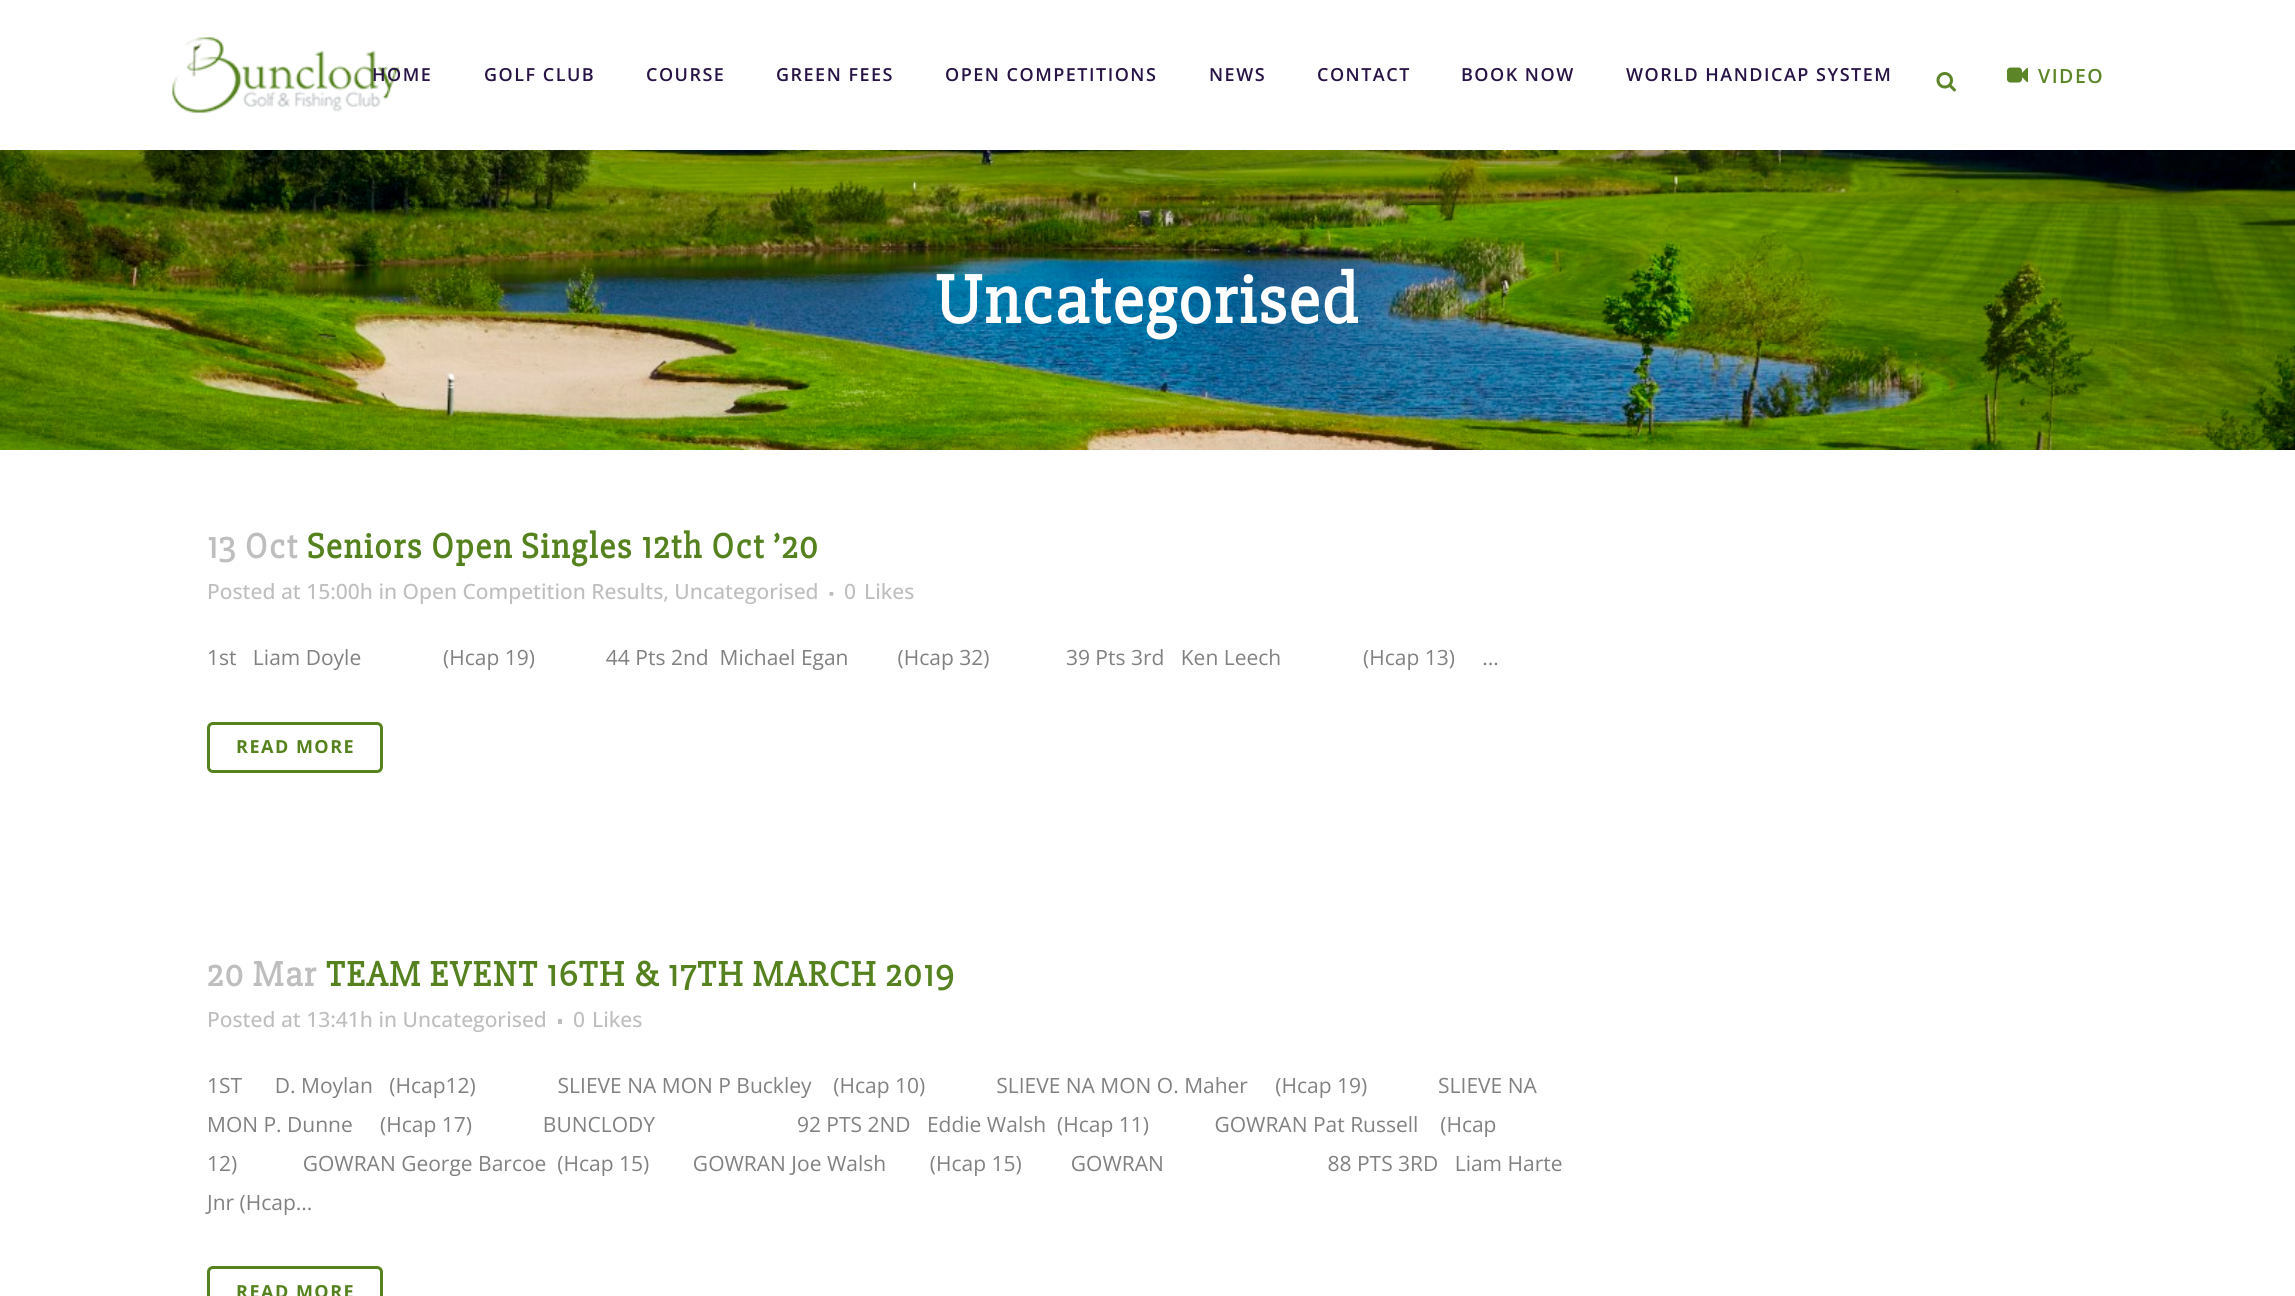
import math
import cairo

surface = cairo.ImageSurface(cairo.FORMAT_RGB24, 2295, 1296)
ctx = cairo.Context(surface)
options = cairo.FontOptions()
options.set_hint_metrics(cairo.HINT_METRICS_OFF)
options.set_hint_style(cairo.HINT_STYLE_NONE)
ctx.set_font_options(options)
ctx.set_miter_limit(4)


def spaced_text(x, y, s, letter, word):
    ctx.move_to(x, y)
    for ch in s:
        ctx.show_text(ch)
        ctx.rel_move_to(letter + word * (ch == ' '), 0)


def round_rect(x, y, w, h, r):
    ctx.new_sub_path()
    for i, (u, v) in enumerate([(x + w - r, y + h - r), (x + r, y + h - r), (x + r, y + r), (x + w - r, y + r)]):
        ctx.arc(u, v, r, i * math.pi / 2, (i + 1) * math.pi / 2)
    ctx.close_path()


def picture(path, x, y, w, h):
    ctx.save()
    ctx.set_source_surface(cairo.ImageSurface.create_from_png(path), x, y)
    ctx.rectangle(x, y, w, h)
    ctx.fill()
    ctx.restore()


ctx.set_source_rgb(1, 1, 1)
ctx.paint()
picture("img1.png", 172, 37, 227, 76)
ctx.select_font_face("Open Sans SemiBold")
ctx.set_font_size(18)
ctx.set_source_rgb(0.157, 0.078, 0.275)
spaced_text(372, 81, "HOME", 1.5, 0)
spaced_text(484, 81, "GOLF CLUB", 1.5, 0)
spaced_text(646, 81, "COURSE", 1.5, 0)
spaced_text(776, 81, "GREEN FEES", 1.5, 0)
spaced_text(945, 81, "OPEN COMPETITIONS", 1.5, 0)
spaced_text(1209, 81, "NEWS", 1.5, 0)
spaced_text(1317, 81, "CONTACT", 1.5, 0)
spaced_text(1461, 81, "BOOK NOW", 1.5, 0)
spaced_text(1626, 81, "WORLD HANDICAP SYSTEM", 1.5, 0)
picture("img2.png", 1936, 72, 20, 20)
picture("img3.png", 2007, 67, 21, 16)
ctx.set_font_size(19.5)
ctx.set_source_rgb(0.357, 0.522, 0.153)
spaced_text(2038, 83, "VIDEO", 1.5, 0)
picture("img4.png", 0, 150, 2295, 300)
ctx.select_font_face("Slabo 27px", cairo.FONT_SLANT_NORMAL, cairo.FONT_WEIGHT_BOLD)
ctx.set_font_size(70.5)
ctx.set_source_rgb(1, 1, 1)
spaced_text(935, 323, "Uncategorised", 1.5, 0)
ctx.set_font_size(36)
ctx.set_source_rgb(0.745, 0.745, 0.745)
spaced_text(207, 558, "13 Oct", 1.5, 0)
ctx.set_source_rgb(0.333, 0.51, 0.118)
spaced_text(307, 558, "Seniors Open Singles 12th Oct ’20", 1.5, 0)
ctx.select_font_face("Open Sans Medium")
ctx.set_font_size(21)
ctx.set_source_rgb(0.745, 0.745, 0.745)
ctx.move_to(207, 599)
ctx.show_text("Posted at 15:00h in Open Competition Results, Uncategorised")
picture("img5.png", 829, 591, 5, 5)
ctx.move_to(844, 599)
ctx.show_text("0")
ctx.move_to(864, 599)
ctx.show_text("Likes")
ctx.select_font_face("Open Sans")
ctx.set_source_rgb(0.506, 0.506, 0.506)
ctx.move_to(207, 665)
ctx.show_text("1st   Liam Doyle               (Hcap 19)             44 Pts 2nd  Michael Egan         (Hcap 32)              39 Pts 3rd   Ken Leech               (Hcap 13)     ...")
round_rect(208.5, 723.5, 173, 48, 4.5)
ctx.set_source_rgb(0.333, 0.51, 0.118)
ctx.set_line_width(3)
ctx.stroke()
ctx.select_font_face("Open Sans", cairo.FONT_SLANT_NORMAL, cairo.FONT_WEIGHT_BOLD)
ctx.set_font_size(18)
spaced_text(236, 753, "READ MORE", 1.5, 0)
ctx.select_font_face("Slabo 27px", cairo.FONT_SLANT_NORMAL, cairo.FONT_WEIGHT_BOLD)
ctx.set_font_size(36)
ctx.set_source_rgb(0.745, 0.745, 0.745)
spaced_text(207, 986, "20 Mar", 1.5, 0)
ctx.set_source_rgb(0.333, 0.51, 0.118)
spaced_text(326, 986, "TEAM EVENT 16TH & 17TH MARCH 2019", 1.5, 0)
ctx.select_font_face("Open Sans Medium")
ctx.set_font_size(21)
ctx.set_source_rgb(0.745, 0.745, 0.745)
ctx.move_to(207, 1027)
ctx.show_text("Posted at 13:41h in Uncategorised")
ctx.rectangle(558, 1019, 4, 5)
ctx.fill()
ctx.move_to(573, 1027)
ctx.show_text("0")
ctx.move_to(592, 1027)
ctx.show_text("Likes")
ctx.select_font_face("Open Sans")
ctx.set_source_rgb(0.506, 0.506, 0.506)
ctx.move_to(207, 1093)
ctx.show_text("1ST      D. Moylan   (Hcap12)               SLIEVE NA MON P Buckley    (Hcap 10)             SLIEVE NA MON O. Maher     (Hcap 19)             SLIEVE NA")
ctx.move_to(207, 1132)
ctx.show_text("MON P. Dunne     (Hcap 17)             BUNCLODY                          92 PTS 2ND   Eddie Walsh  (Hcap 11)            GOWRAN Pat Russell    (Hcap")
ctx.move_to(207, 1171)
ctx.show_text("12)            GOWRAN George Barcoe  (Hcap 15)        GOWRAN Joe Walsh        (Hcap 15)         GOWRAN                              88 PTS 3RD   Liam Harte")
ctx.move_to(207, 1210)
ctx.show_text("Jnr (Hcap...")
round_rect(208.5, 1267.5, 173, 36, 4.5)
ctx.set_source_rgb(0.333, 0.51, 0.118)
ctx.stroke()
ctx.select_font_face("Open Sans", cairo.FONT_SLANT_NORMAL, cairo.FONT_WEIGHT_BOLD)
ctx.set_font_size(18)
spaced_text(236, 1298, "READ MORE", 1.5, 0)
surface.write_to_png("page.png")
